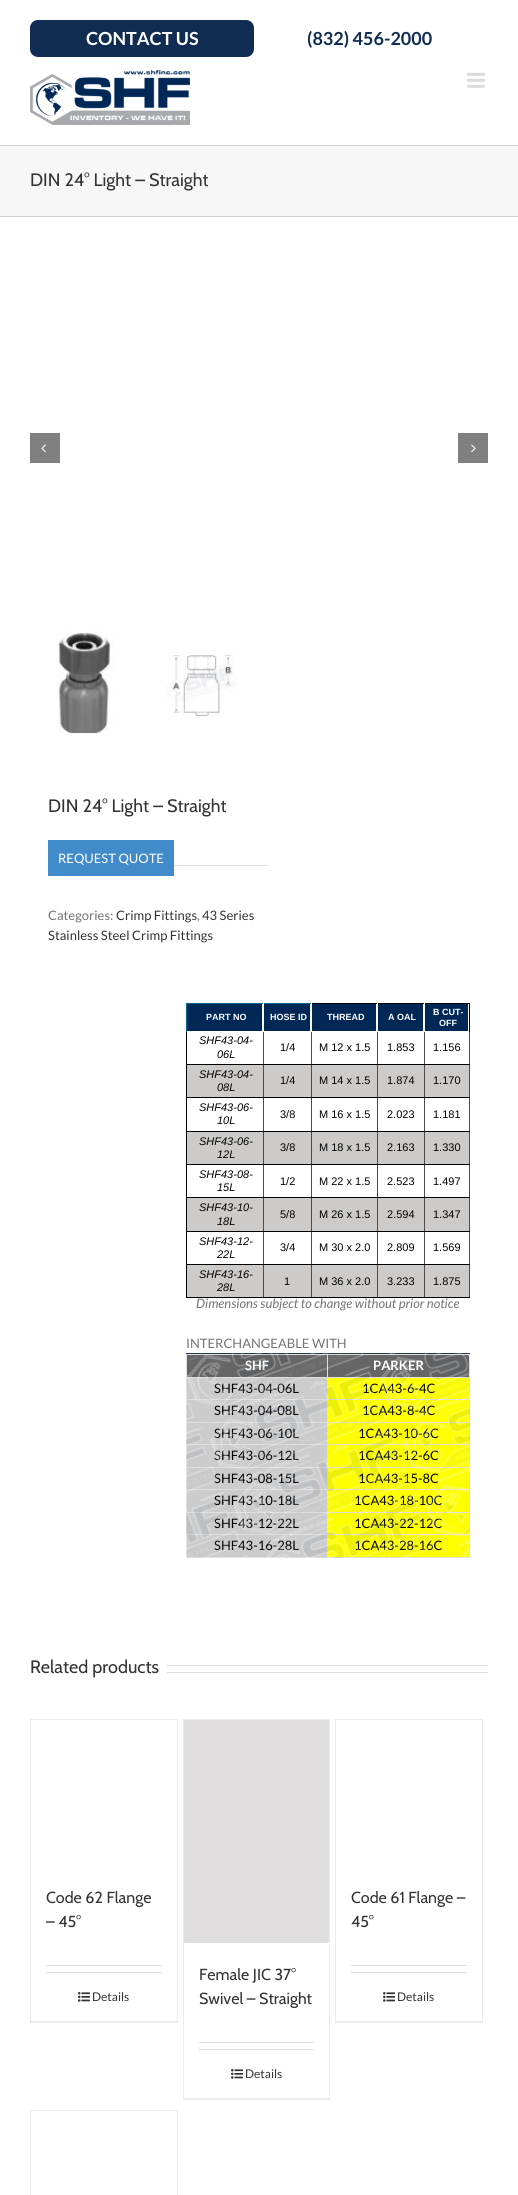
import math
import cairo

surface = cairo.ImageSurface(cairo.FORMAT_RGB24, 518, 2195)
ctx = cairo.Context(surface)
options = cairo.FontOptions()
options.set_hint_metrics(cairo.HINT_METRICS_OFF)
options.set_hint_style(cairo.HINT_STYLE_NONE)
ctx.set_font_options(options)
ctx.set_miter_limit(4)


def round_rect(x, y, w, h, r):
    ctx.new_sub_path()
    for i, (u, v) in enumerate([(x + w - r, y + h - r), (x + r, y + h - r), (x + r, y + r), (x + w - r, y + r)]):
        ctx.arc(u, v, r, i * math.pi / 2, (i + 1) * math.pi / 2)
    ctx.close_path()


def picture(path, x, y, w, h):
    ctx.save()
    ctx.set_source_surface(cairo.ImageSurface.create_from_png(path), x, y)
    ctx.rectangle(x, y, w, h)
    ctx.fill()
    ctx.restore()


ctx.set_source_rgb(1, 1, 1)
ctx.paint()
ctx.set_source_rgb(0.063, 0.173, 0.322)
round_rect(30, 20, 224, 37, 8)
ctx.fill()
ctx.select_font_face("Lato", cairo.FONT_SLANT_NORMAL, cairo.FONT_WEIGHT_BOLD)
ctx.set_font_size(18)
ctx.set_source_rgb(1, 1, 1)
ctx.move_to(86, 45)
ctx.show_text("CONTACT US")
ctx.set_source_rgb(0.063, 0.173, 0.322)
ctx.move_to(307, 45)
ctx.show_text("(832) 456-2000")
picture("img1.png", 30, 70, 160, 55)
picture("img2.png", 467, 72, 18, 16)
ctx.set_source_rgb(0.965, 0.965, 0.965)
ctx.rectangle(0, 146, 518, 70)
ctx.fill()
ctx.set_source_rgb(0.824, 0.827, 0.831)
ctx.rectangle(0, 145, 518, 1)
ctx.fill()
ctx.rectangle(0, 216, 518, 1)
ctx.fill()
ctx.select_font_face("Cabin")
ctx.set_source_rgb(0.2, 0.2, 0.2)
ctx.move_to(30, 186)
ctx.show_text("DIN 24° Light – Straight")
ctx.set_source_rgb(0.502, 0.502, 0.502)
ctx.rectangle(30, 433, 30, 30)
ctx.fill()
picture("img3.png", 41, 444, 5, 9)
ctx.rectangle(458, 433, 30, 30)
ctx.fill()
picture("img4.png", 471, 444, 5, 9)
picture("img5.png", 56, 631, 59, 102)
picture("img6.png", 165, 650, 72, 68)
ctx.set_source_rgb(0.2, 0.2, 0.2)
ctx.move_to(48, 812)
ctx.show_text("DIN 24° Light – Straight")
ctx.set_source_rgb(0.878, 0.871, 0.871)
ctx.rectangle(174, 865, 94, 1)
ctx.fill()
ctx.select_font_face("Lato")
ctx.set_font_size(13)
ctx.set_source_rgb(0.455, 0.455, 0.455)
ctx.move_to(48, 920)
ctx.show_text("Categories:")
ctx.set_source_rgb(0.2, 0.2, 0.2)
ctx.move_to(116, 920)
ctx.show_text("Crimp Fittings")
ctx.set_source_rgb(0.455, 0.455, 0.455)
ctx.move_to(197, 920)
ctx.show_text(",")
ctx.set_source_rgb(0.2, 0.2, 0.2)
ctx.move_to(202, 920)
ctx.show_text("43 Series")
ctx.move_to(48, 940)
ctx.show_text("Stainless Steel Crimp Fittings")
ctx.set_source_rgb(0.259, 0.545, 0.792)
ctx.rectangle(48, 840, 126, 36)
ctx.fill()
ctx.set_source_rgb(1, 1, 1)
ctx.move_to(58, 863)
ctx.show_text("REQUEST QUOTE")
ctx.set_source_rgb(0, 0, 0)
ctx.rectangle(311, 1003, 159, 1)
ctx.fill()
ctx.rectangle(186, 1032, 1, 266)
ctx.fill()
ctx.set_source_rgb(0, 0.157, 0.337)
ctx.rectangle(187, 1004, 75, 27)
ctx.fill()
ctx.set_source_rgb(0, 0.396, 0.565)
ctx.rectangle(186, 1003, 126, 1)
ctx.fill()
ctx.set_source_rgb(0.294, 0.294, 0.302)
ctx.rectangle(469, 1031, 1, 267)
ctx.fill()
ctx.set_source_rgb(0, 0, 0)
ctx.rectangle(424, 1297, 46, 1)
ctx.fill()
ctx.set_source_rgb(0.294, 0.294, 0.302)
ctx.rectangle(424, 1264, 1, 34)
ctx.fill()
ctx.set_source_rgb(0, 0, 0)
ctx.rectangle(424, 1264, 46, 1)
ctx.fill()
ctx.set_source_rgb(0.294, 0.294, 0.302)
ctx.rectangle(424, 1231, 1, 34)
ctx.fill()
ctx.set_source_rgb(0, 0, 0)
ctx.rectangle(424, 1231, 46, 1)
ctx.fill()
ctx.set_source_rgb(0.294, 0.294, 0.302)
ctx.rectangle(424, 1197, 1, 35)
ctx.fill()
ctx.set_source_rgb(0, 0, 0)
ctx.rectangle(424, 1197, 46, 1)
ctx.fill()
ctx.set_source_rgb(0.294, 0.294, 0.302)
ctx.rectangle(424, 1164, 1, 34)
ctx.fill()
ctx.set_source_rgb(0, 0, 0)
ctx.rectangle(424, 1164, 46, 1)
ctx.fill()
ctx.set_source_rgb(0.294, 0.294, 0.302)
ctx.rectangle(424, 1131, 1, 34)
ctx.fill()
ctx.set_source_rgb(0, 0, 0)
ctx.rectangle(424, 1131, 46, 1)
ctx.fill()
ctx.set_source_rgb(0.294, 0.294, 0.302)
ctx.rectangle(424, 1097, 1, 35)
ctx.fill()
ctx.set_source_rgb(0, 0, 0)
ctx.rectangle(424, 1097, 46, 1)
ctx.fill()
ctx.set_source_rgb(0.294, 0.294, 0.302)
ctx.rectangle(424, 1064, 1, 34)
ctx.fill()
ctx.set_source_rgb(0, 0, 0)
ctx.rectangle(424, 1064, 46, 1)
ctx.fill()
ctx.set_source_rgb(0.294, 0.294, 0.302)
ctx.rectangle(424, 1031, 1, 34)
ctx.fill()
ctx.set_source_rgb(0, 0, 0)
ctx.rectangle(377, 1297, 48, 1)
ctx.fill()
ctx.set_source_rgb(0.294, 0.294, 0.302)
ctx.rectangle(377, 1264, 1, 34)
ctx.fill()
ctx.set_source_rgb(0, 0, 0)
ctx.rectangle(377, 1264, 48, 1)
ctx.fill()
ctx.set_source_rgb(0.294, 0.294, 0.302)
ctx.rectangle(377, 1231, 1, 34)
ctx.fill()
ctx.set_source_rgb(0, 0, 0)
ctx.rectangle(377, 1231, 48, 1)
ctx.fill()
ctx.set_source_rgb(0.294, 0.294, 0.302)
ctx.rectangle(377, 1197, 1, 35)
ctx.fill()
ctx.set_source_rgb(0, 0, 0)
ctx.rectangle(377, 1197, 48, 1)
ctx.fill()
ctx.set_source_rgb(0.294, 0.294, 0.302)
ctx.rectangle(377, 1164, 1, 34)
ctx.fill()
ctx.set_source_rgb(0, 0, 0)
ctx.rectangle(377, 1164, 48, 1)
ctx.fill()
ctx.set_source_rgb(0.294, 0.294, 0.302)
ctx.rectangle(377, 1131, 1, 34)
ctx.fill()
ctx.set_source_rgb(0, 0, 0)
ctx.rectangle(377, 1131, 48, 1)
ctx.fill()
ctx.set_source_rgb(0.294, 0.294, 0.302)
ctx.rectangle(377, 1097, 1, 35)
ctx.fill()
ctx.set_source_rgb(0, 0, 0)
ctx.rectangle(377, 1097, 48, 1)
ctx.fill()
ctx.set_source_rgb(0.294, 0.294, 0.302)
ctx.rectangle(377, 1064, 1, 34)
ctx.fill()
ctx.set_source_rgb(0, 0, 0)
ctx.rectangle(377, 1064, 48, 1)
ctx.fill()
ctx.set_source_rgb(0.294, 0.294, 0.302)
ctx.rectangle(377, 1031, 1, 34)
ctx.fill()
ctx.set_source_rgb(0, 0, 0)
ctx.rectangle(311, 1297, 67, 1)
ctx.fill()
ctx.set_source_rgb(0.294, 0.294, 0.302)
ctx.rectangle(311, 1264, 1, 34)
ctx.fill()
ctx.set_source_rgb(0, 0, 0)
ctx.rectangle(311, 1264, 67, 1)
ctx.fill()
ctx.set_source_rgb(0.294, 0.294, 0.302)
ctx.rectangle(311, 1231, 1, 34)
ctx.fill()
ctx.set_source_rgb(0, 0, 0)
ctx.rectangle(311, 1231, 67, 1)
ctx.fill()
ctx.set_source_rgb(0.294, 0.294, 0.302)
ctx.rectangle(311, 1197, 1, 35)
ctx.fill()
ctx.set_source_rgb(0, 0, 0)
ctx.rectangle(311, 1197, 67, 1)
ctx.fill()
ctx.set_source_rgb(0.294, 0.294, 0.302)
ctx.rectangle(311, 1164, 1, 34)
ctx.fill()
ctx.set_source_rgb(0, 0, 0)
ctx.rectangle(311, 1164, 67, 1)
ctx.fill()
ctx.set_source_rgb(0.294, 0.294, 0.302)
ctx.rectangle(311, 1131, 1, 34)
ctx.fill()
ctx.set_source_rgb(0, 0, 0)
ctx.rectangle(311, 1131, 67, 1)
ctx.fill()
ctx.set_source_rgb(0.294, 0.294, 0.302)
ctx.rectangle(311, 1097, 1, 35)
ctx.fill()
ctx.set_source_rgb(0, 0, 0)
ctx.rectangle(311, 1097, 67, 1)
ctx.fill()
ctx.set_source_rgb(0.294, 0.294, 0.302)
ctx.rectangle(311, 1064, 1, 34)
ctx.fill()
ctx.set_source_rgb(0, 0, 0)
ctx.rectangle(311, 1064, 67, 1)
ctx.fill()
ctx.set_source_rgb(0.294, 0.294, 0.302)
ctx.rectangle(311, 1031, 1, 34)
ctx.fill()
ctx.set_source_rgb(0, 0, 0)
ctx.rectangle(263, 1297, 49, 1)
ctx.fill()
ctx.set_source_rgb(0.294, 0.294, 0.302)
ctx.rectangle(263, 1264, 1, 34)
ctx.fill()
ctx.set_source_rgb(0, 0, 0)
ctx.rectangle(263, 1264, 49, 1)
ctx.fill()
ctx.set_source_rgb(0.294, 0.294, 0.302)
ctx.rectangle(263, 1231, 1, 34)
ctx.fill()
ctx.set_source_rgb(0, 0, 0)
ctx.rectangle(263, 1231, 49, 1)
ctx.fill()
ctx.set_source_rgb(0.294, 0.294, 0.302)
ctx.rectangle(263, 1197, 1, 35)
ctx.fill()
ctx.set_source_rgb(0, 0, 0)
ctx.rectangle(263, 1197, 49, 1)
ctx.fill()
ctx.set_source_rgb(0.294, 0.294, 0.302)
ctx.rectangle(263, 1164, 1, 34)
ctx.fill()
ctx.set_source_rgb(0, 0, 0)
ctx.rectangle(263, 1164, 49, 1)
ctx.fill()
ctx.set_source_rgb(0.294, 0.294, 0.302)
ctx.rectangle(263, 1131, 1, 34)
ctx.fill()
ctx.set_source_rgb(0, 0, 0)
ctx.rectangle(263, 1131, 49, 1)
ctx.fill()
ctx.set_source_rgb(0.294, 0.294, 0.302)
ctx.rectangle(263, 1097, 1, 35)
ctx.fill()
ctx.set_source_rgb(0, 0, 0)
ctx.rectangle(263, 1097, 49, 1)
ctx.fill()
ctx.set_source_rgb(0.294, 0.294, 0.302)
ctx.rectangle(263, 1064, 1, 34)
ctx.fill()
ctx.set_source_rgb(0, 0, 0)
ctx.rectangle(263, 1064, 49, 1)
ctx.fill()
ctx.set_source_rgb(0.294, 0.294, 0.302)
ctx.rectangle(263, 1031, 1, 34)
ctx.fill()
ctx.set_source_rgb(1, 1, 1)
ctx.rectangle(263, 1003, 1, 29)
ctx.fill()
ctx.set_source_rgb(0, 0.396, 0.565)
ctx.rectangle(186, 1003, 1, 29)
ctx.fill()
ctx.select_font_face("Liberation Sans", cairo.FONT_SLANT_NORMAL, cairo.FONT_WEIGHT_BOLD)
ctx.set_font_size(9)
ctx.set_source_rgb(1, 1, 1)
ctx.move_to(206, 1020)
ctx.show_text("PART NO")
ctx.set_source_rgb(0, 0.157, 0.337)
ctx.rectangle(264, 1004, 46, 27)
ctx.fill()
ctx.set_source_rgb(1, 1, 1)
ctx.rectangle(311, 1003, 1, 29)
ctx.fill()
ctx.move_to(270, 1020)
ctx.show_text("HOSE ID")
ctx.set_source_rgb(0, 0.157, 0.337)
ctx.rectangle(312, 1004, 64, 27)
ctx.fill()
ctx.set_source_rgb(1, 1, 1)
ctx.rectangle(377, 1003, 1, 29)
ctx.fill()
ctx.move_to(327, 1020)
ctx.show_text("THREAD")
ctx.set_source_rgb(0, 0.157, 0.337)
ctx.rectangle(378, 1004, 45, 27)
ctx.fill()
ctx.set_source_rgb(1, 1, 1)
ctx.rectangle(424, 1003, 1, 29)
ctx.fill()
ctx.move_to(388, 1020)
ctx.show_text("A OAL")
ctx.set_source_rgb(0, 0.157, 0.337)
ctx.rectangle(425, 1004, 43, 27)
ctx.fill()
ctx.set_source_rgb(0, 0, 0)
ctx.rectangle(469, 1003, 1, 29)
ctx.fill()
ctx.set_source_rgb(1, 1, 1)
ctx.move_to(433, 1015)
ctx.show_text("B CUT-")
ctx.move_to(439, 1026)
ctx.show_text("OFF")
ctx.set_source_rgb(0, 0, 0)
ctx.rectangle(186, 1064, 78, 1)
ctx.fill()
ctx.select_font_face("Liberation Sans", cairo.FONT_SLANT_ITALIC)
ctx.set_font_size(11)
ctx.move_to(199, 1044)
ctx.show_text("SHF43-04-")
ctx.move_to(217, 1058)
ctx.show_text("06L")
ctx.select_font_face("Liberation Sans")
ctx.move_to(280, 1051)
ctx.show_text("1/4")
ctx.move_to(319, 1051)
ctx.show_text("M 12 x 1.5")
ctx.move_to(387, 1051)
ctx.show_text("1.853")
ctx.move_to(433, 1051)
ctx.show_text("1.156")
ctx.set_source_rgb(0.8, 0.796, 0.792)
ctx.rectangle(187, 1065, 76, 32)
ctx.fill()
ctx.set_source_rgb(0, 0, 0)
ctx.rectangle(186, 1097, 78, 1)
ctx.fill()
ctx.select_font_face("Liberation Sans", cairo.FONT_SLANT_ITALIC)
ctx.move_to(199, 1078)
ctx.show_text("SHF43-04-")
ctx.move_to(217, 1091)
ctx.show_text("08L")
ctx.set_source_rgb(0.8, 0.796, 0.792)
ctx.rectangle(264, 1065, 47, 32)
ctx.fill()
ctx.select_font_face("Liberation Sans")
ctx.set_source_rgb(0, 0, 0)
ctx.move_to(280, 1084)
ctx.show_text("1/4")
ctx.set_source_rgb(0.8, 0.796, 0.792)
ctx.rectangle(312, 1065, 65, 32)
ctx.fill()
ctx.set_source_rgb(0, 0, 0)
ctx.move_to(319, 1084)
ctx.show_text("M 14 x 1.5")
ctx.set_source_rgb(0.8, 0.796, 0.792)
ctx.rectangle(378, 1065, 46, 32)
ctx.fill()
ctx.set_source_rgb(0, 0, 0)
ctx.move_to(387, 1084)
ctx.show_text("1.874")
ctx.set_source_rgb(0.8, 0.796, 0.792)
ctx.rectangle(425, 1065, 44, 32)
ctx.fill()
ctx.set_source_rgb(0, 0, 0)
ctx.move_to(433, 1084)
ctx.show_text("1.170")
ctx.rectangle(186, 1131, 78, 1)
ctx.fill()
ctx.select_font_face("Liberation Sans", cairo.FONT_SLANT_ITALIC)
ctx.move_to(199, 1111)
ctx.show_text("SHF43-06-")
ctx.move_to(217, 1124)
ctx.show_text("10L")
ctx.select_font_face("Liberation Sans")
ctx.move_to(280, 1118)
ctx.show_text("3/8")
ctx.move_to(319, 1118)
ctx.show_text("M 16 x 1.5")
ctx.move_to(387, 1118)
ctx.show_text("2.023")
ctx.move_to(433, 1118)
ctx.show_text("1.181")
ctx.set_source_rgb(0.8, 0.796, 0.792)
ctx.rectangle(187, 1132, 76, 32)
ctx.fill()
ctx.set_source_rgb(0, 0, 0)
ctx.rectangle(186, 1164, 78, 1)
ctx.fill()
ctx.select_font_face("Liberation Sans", cairo.FONT_SLANT_ITALIC)
ctx.move_to(199, 1145)
ctx.show_text("SHF43-06-")
ctx.move_to(217, 1158)
ctx.show_text("12L")
ctx.set_source_rgb(0.8, 0.796, 0.792)
ctx.rectangle(264, 1132, 47, 32)
ctx.fill()
ctx.select_font_face("Liberation Sans")
ctx.set_source_rgb(0, 0, 0)
ctx.move_to(280, 1151)
ctx.show_text("3/8")
ctx.set_source_rgb(0.8, 0.796, 0.792)
ctx.rectangle(312, 1132, 65, 32)
ctx.fill()
ctx.set_source_rgb(0, 0, 0)
ctx.move_to(319, 1151)
ctx.show_text("M 18 x 1.5")
ctx.set_source_rgb(0.8, 0.796, 0.792)
ctx.rectangle(378, 1132, 46, 32)
ctx.fill()
ctx.set_source_rgb(0, 0, 0)
ctx.move_to(387, 1151)
ctx.show_text("2.163")
ctx.set_source_rgb(0.8, 0.796, 0.792)
ctx.rectangle(425, 1132, 44, 32)
ctx.fill()
ctx.set_source_rgb(0, 0, 0)
ctx.move_to(433, 1151)
ctx.show_text("1.330")
ctx.rectangle(186, 1197, 78, 1)
ctx.fill()
ctx.select_font_face("Liberation Sans", cairo.FONT_SLANT_ITALIC)
ctx.move_to(199, 1178)
ctx.show_text("SHF43-08-")
ctx.move_to(217, 1191)
ctx.show_text("15L")
ctx.select_font_face("Liberation Sans")
ctx.move_to(280, 1185)
ctx.show_text("1/2")
ctx.move_to(319, 1185)
ctx.show_text("M 22 x 1.5")
ctx.move_to(387, 1185)
ctx.show_text("2.523")
ctx.move_to(433, 1185)
ctx.show_text("1.497")
ctx.set_source_rgb(0.8, 0.796, 0.792)
ctx.rectangle(187, 1198, 76, 33)
ctx.fill()
ctx.set_source_rgb(0, 0, 0)
ctx.rectangle(186, 1231, 78, 1)
ctx.fill()
ctx.select_font_face("Liberation Sans", cairo.FONT_SLANT_ITALIC)
ctx.move_to(199, 1211)
ctx.show_text("SHF43-10-")
ctx.move_to(217, 1225)
ctx.show_text("18L")
ctx.set_source_rgb(0.8, 0.796, 0.792)
ctx.rectangle(264, 1198, 47, 33)
ctx.fill()
ctx.select_font_face("Liberation Sans")
ctx.set_source_rgb(0, 0, 0)
ctx.move_to(280, 1218)
ctx.show_text("5/8")
ctx.set_source_rgb(0.8, 0.796, 0.792)
ctx.rectangle(312, 1198, 65, 33)
ctx.fill()
ctx.set_source_rgb(0, 0, 0)
ctx.move_to(319, 1218)
ctx.show_text("M 26 x 1.5")
ctx.set_source_rgb(0.8, 0.796, 0.792)
ctx.rectangle(378, 1198, 46, 33)
ctx.fill()
ctx.set_source_rgb(0, 0, 0)
ctx.move_to(387, 1218)
ctx.show_text("2.594")
ctx.set_source_rgb(0.8, 0.796, 0.792)
ctx.rectangle(425, 1198, 44, 33)
ctx.fill()
ctx.set_source_rgb(0, 0, 0)
ctx.move_to(433, 1218)
ctx.show_text("1.347")
ctx.rectangle(186, 1264, 78, 1)
ctx.fill()
ctx.select_font_face("Liberation Sans", cairo.FONT_SLANT_ITALIC)
ctx.move_to(199, 1245)
ctx.show_text("SHF43-12-")
ctx.move_to(217, 1258)
ctx.show_text("22L")
ctx.select_font_face("Liberation Sans")
ctx.move_to(280, 1251)
ctx.show_text("3/4")
ctx.move_to(319, 1251)
ctx.show_text("M 30 x 2.0")
ctx.move_to(387, 1251)
ctx.show_text("2.809")
ctx.move_to(433, 1251)
ctx.show_text("1.569")
ctx.set_source_rgb(0.8, 0.796, 0.792)
ctx.rectangle(187, 1265, 76, 32)
ctx.fill()
ctx.set_source_rgb(0, 0, 0)
ctx.rectangle(186, 1297, 78, 1)
ctx.fill()
ctx.select_font_face("Liberation Sans", cairo.FONT_SLANT_ITALIC)
ctx.move_to(199, 1278)
ctx.show_text("SHF43-16-")
ctx.move_to(217, 1291)
ctx.show_text("28L")
ctx.set_source_rgb(0.8, 0.796, 0.792)
ctx.rectangle(264, 1265, 47, 32)
ctx.fill()
ctx.select_font_face("Liberation Sans")
ctx.set_source_rgb(0, 0, 0)
ctx.move_to(284, 1285)
ctx.show_text("1")
ctx.set_source_rgb(0.8, 0.796, 0.792)
ctx.rectangle(312, 1265, 65, 32)
ctx.fill()
ctx.set_source_rgb(0, 0, 0)
ctx.move_to(319, 1285)
ctx.show_text("M 36 x 2.0")
ctx.set_source_rgb(0.8, 0.796, 0.792)
ctx.rectangle(378, 1265, 46, 32)
ctx.fill()
ctx.set_source_rgb(0, 0, 0)
ctx.move_to(387, 1285)
ctx.show_text("3.233")
ctx.set_source_rgb(0.8, 0.796, 0.792)
ctx.rectangle(425, 1265, 44, 32)
ctx.fill()
ctx.set_source_rgb(0, 0, 0)
ctx.move_to(433, 1285)
ctx.show_text("1.875")
ctx.select_font_face("Lato", cairo.FONT_SLANT_ITALIC)
ctx.set_font_size(13)
ctx.set_source_rgb(0.455, 0.455, 0.455)
ctx.move_to(196, 1308)
ctx.show_text("Dimensions subject to change without prior notice")
ctx.select_font_face("Lato")
ctx.move_to(186, 1348)
ctx.show_text("INTERCHANGEABLE WITH")
ctx.set_source_rgb(0.129, 0.212, 0.294)
ctx.rectangle(186, 1353, 284, 1)
ctx.fill()
ctx.set_source_rgb(0.4, 0.4, 0.4)
ctx.rectangle(187, 1355, 140, 22)
ctx.fill()
ctx.set_source_rgb(0.878, 0.871, 0.871)
ctx.rectangle(327, 1354, 143, 1)
ctx.fill()
ctx.rectangle(327, 1377, 143, 1)
ctx.fill()
ctx.rectangle(327, 1399, 143, 1)
ctx.fill()
ctx.rectangle(327, 1422, 143, 1)
ctx.fill()
ctx.rectangle(327, 1444, 143, 1)
ctx.fill()
ctx.rectangle(327, 1467, 143, 1)
ctx.fill()
ctx.rectangle(327, 1489, 143, 1)
ctx.fill()
ctx.rectangle(327, 1512, 143, 1)
ctx.fill()
ctx.rectangle(327, 1534, 143, 1)
ctx.fill()
ctx.rectangle(469, 1534, 1, 24)
ctx.fill()
ctx.rectangle(327, 1557, 143, 1)
ctx.fill()
ctx.rectangle(327, 1534, 1, 24)
ctx.fill()
ctx.rectangle(186, 1534, 142, 1)
ctx.fill()
ctx.rectangle(327, 1512, 1, 23)
ctx.fill()
ctx.rectangle(186, 1512, 142, 1)
ctx.fill()
ctx.rectangle(327, 1489, 1, 24)
ctx.fill()
ctx.rectangle(186, 1489, 142, 1)
ctx.fill()
ctx.rectangle(327, 1467, 1, 23)
ctx.fill()
ctx.rectangle(186, 1467, 142, 1)
ctx.fill()
ctx.rectangle(327, 1444, 1, 24)
ctx.fill()
ctx.rectangle(186, 1444, 142, 1)
ctx.fill()
ctx.rectangle(327, 1422, 1, 23)
ctx.fill()
ctx.rectangle(186, 1422, 142, 1)
ctx.fill()
ctx.rectangle(327, 1399, 1, 24)
ctx.fill()
ctx.rectangle(186, 1399, 142, 1)
ctx.fill()
ctx.rectangle(327, 1377, 1, 23)
ctx.fill()
ctx.rectangle(186, 1377, 142, 1)
ctx.fill()
ctx.rectangle(327, 1354, 1, 24)
ctx.fill()
ctx.rectangle(186, 1354, 142, 1)
ctx.fill()
ctx.rectangle(186, 1557, 142, 1)
ctx.fill()
ctx.rectangle(186, 1534, 1, 24)
ctx.fill()
ctx.rectangle(186, 1512, 1, 23)
ctx.fill()
ctx.rectangle(186, 1489, 1, 24)
ctx.fill()
ctx.rectangle(186, 1467, 1, 23)
ctx.fill()
ctx.rectangle(186, 1444, 1, 24)
ctx.fill()
ctx.rectangle(186, 1422, 1, 23)
ctx.fill()
ctx.rectangle(186, 1399, 1, 24)
ctx.fill()
ctx.rectangle(186, 1377, 1, 23)
ctx.fill()
ctx.rectangle(186, 1354, 1, 24)
ctx.fill()
ctx.select_font_face("Lato", cairo.FONT_SLANT_NORMAL, cairo.FONT_WEIGHT_BOLD)
ctx.set_source_rgb(1, 1, 1)
ctx.move_to(245, 1370)
ctx.show_text("SHF")
ctx.set_source_rgb(0.4, 0.4, 0.4)
ctx.rectangle(328, 1355, 141, 22)
ctx.fill()
ctx.set_source_rgb(0.878, 0.871, 0.871)
ctx.rectangle(469, 1512, 1, 23)
ctx.fill()
ctx.rectangle(469, 1489, 1, 24)
ctx.fill()
ctx.rectangle(469, 1467, 1, 23)
ctx.fill()
ctx.rectangle(469, 1444, 1, 24)
ctx.fill()
ctx.rectangle(469, 1422, 1, 23)
ctx.fill()
ctx.rectangle(469, 1399, 1, 24)
ctx.fill()
ctx.rectangle(469, 1377, 1, 23)
ctx.fill()
ctx.rectangle(469, 1354, 1, 24)
ctx.fill()
ctx.set_source_rgb(1, 1, 1)
ctx.move_to(373, 1370)
ctx.show_text("PARKER")
ctx.set_source_rgb(0.8, 0.8, 0.8)
ctx.rectangle(187, 1378, 140, 21)
ctx.fill()
ctx.select_font_face("Lato")
ctx.set_source_rgb(0, 0, 0)
ctx.move_to(214, 1393)
ctx.show_text("SHF43-04-06L")
ctx.set_source_rgb(1, 1, 0)
ctx.rectangle(328, 1378, 141, 21)
ctx.fill()
ctx.set_source_rgb(0, 0, 0)
ctx.move_to(362, 1393)
ctx.show_text("1CA43-6-4C")
ctx.set_source_rgb(0.8, 0.8, 0.8)
ctx.rectangle(187, 1400, 140, 22)
ctx.fill()
ctx.set_source_rgb(0, 0, 0)
ctx.move_to(214, 1415)
ctx.show_text("SHF43-04-08L")
ctx.set_source_rgb(1, 1, 0)
ctx.rectangle(328, 1400, 141, 22)
ctx.fill()
ctx.set_source_rgb(0, 0, 0)
ctx.move_to(362, 1415)
ctx.show_text("1CA43-8-4C")
ctx.set_source_rgb(0.8, 0.8, 0.8)
ctx.rectangle(187, 1423, 140, 21)
ctx.fill()
ctx.set_source_rgb(0, 0, 0)
ctx.move_to(214, 1438)
ctx.show_text("SHF43-06-10L")
ctx.set_source_rgb(1, 1, 0)
ctx.rectangle(328, 1423, 141, 21)
ctx.fill()
ctx.set_source_rgb(0, 0, 0)
ctx.move_to(358, 1438)
ctx.show_text("1CA43-10-6C")
ctx.set_source_rgb(0.8, 0.8, 0.8)
ctx.rectangle(187, 1445, 140, 22)
ctx.fill()
ctx.set_source_rgb(0, 0, 0)
ctx.move_to(214, 1460)
ctx.show_text("SHF43-06-12L")
ctx.set_source_rgb(1, 1, 0)
ctx.rectangle(328, 1445, 141, 22)
ctx.fill()
ctx.set_source_rgb(0, 0, 0)
ctx.move_to(358, 1460)
ctx.show_text("1CA43-12-6C")
ctx.set_source_rgb(0.8, 0.8, 0.8)
ctx.rectangle(187, 1468, 140, 21)
ctx.fill()
ctx.set_source_rgb(0, 0, 0)
ctx.move_to(214, 1483)
ctx.show_text("SHF43-08-15L")
ctx.set_source_rgb(1, 1, 0)
ctx.rectangle(328, 1468, 141, 21)
ctx.fill()
ctx.set_source_rgb(0, 0, 0)
ctx.move_to(358, 1483)
ctx.show_text("1CA43-15-8C")
ctx.set_source_rgb(0.8, 0.8, 0.8)
ctx.rectangle(187, 1490, 140, 22)
ctx.fill()
ctx.set_source_rgb(0, 0, 0)
ctx.move_to(214, 1505)
ctx.show_text("SHF43-10-18L")
ctx.set_source_rgb(1, 1, 0)
ctx.rectangle(328, 1490, 141, 22)
ctx.fill()
ctx.set_source_rgb(0, 0, 0)
ctx.move_to(354, 1505)
ctx.show_text("1CA43-18-10C")
ctx.set_source_rgb(0.8, 0.8, 0.8)
ctx.rectangle(187, 1513, 140, 21)
ctx.fill()
ctx.set_source_rgb(0, 0, 0)
ctx.move_to(214, 1528)
ctx.show_text("SHF43-12-22L")
ctx.set_source_rgb(1, 1, 0)
ctx.rectangle(328, 1513, 141, 21)
ctx.fill()
ctx.set_source_rgb(0, 0, 0)
ctx.move_to(354, 1528)
ctx.show_text("1CA43-22-12C")
ctx.set_source_rgb(0.8, 0.8, 0.8)
ctx.rectangle(187, 1535, 140, 22)
ctx.fill()
ctx.set_source_rgb(0, 0, 0)
ctx.move_to(214, 1550)
ctx.show_text("SHF43-16-28L")
ctx.set_source_rgb(1, 1, 0)
ctx.rectangle(328, 1535, 141, 22)
ctx.fill()
ctx.set_source_rgb(0, 0, 0)
ctx.move_to(354, 1550)
ctx.show_text("1CA43-28-16C")
picture("img7.png", 186, 1353, 284, 205)
ctx.select_font_face("Cabin")
ctx.set_font_size(18)
ctx.set_source_rgb(0.2, 0.2, 0.2)
ctx.move_to(30, 1673)
ctx.show_text("Related products")
ctx.set_source_rgb(0.878, 0.871, 0.871)
ctx.rectangle(167, 1665, 321, 1)
ctx.fill()
ctx.rectangle(167, 1672, 321, 1)
ctx.fill()
ctx.set_source_rgb(0.922, 0.918, 0.918)
ctx.rectangle(30, 1719, 148, 1)
ctx.fill()
ctx.rectangle(177, 1719, 1, 304)
ctx.fill()
ctx.rectangle(30, 2021, 148, 2)
ctx.fill()
ctx.rectangle(30, 1719, 1, 304)
ctx.fill()
ctx.set_font_size(16)
ctx.set_source_rgb(0.2, 0.2, 0.2)
ctx.move_to(46, 1903)
ctx.show_text("Code 62 Flange")
ctx.move_to(46, 1927)
ctx.show_text("– 45°")
ctx.set_source_rgb(0.878, 0.871, 0.871)
ctx.rectangle(46, 1965, 116, 1)
ctx.fill()
ctx.rectangle(46, 1972, 116, 1)
ctx.fill()
picture("img8.png", 78, 1992, 12, 10)
ctx.select_font_face("Lato")
ctx.set_font_size(12)
ctx.set_source_rgb(0.2, 0.2, 0.2)
ctx.move_to(92, 2001)
ctx.show_text("Details")
ctx.set_source_rgb(0.922, 0.918, 0.918)
ctx.rectangle(335, 1719, 148, 1)
ctx.fill()
ctx.rectangle(482, 1719, 1, 304)
ctx.fill()
ctx.rectangle(335, 2021, 148, 2)
ctx.fill()
ctx.rectangle(335, 1719, 1, 304)
ctx.fill()
ctx.select_font_face("Cabin")
ctx.set_font_size(16)
ctx.set_source_rgb(0.2, 0.2, 0.2)
ctx.move_to(351, 1903)
ctx.show_text("Code 61 Flange –")
ctx.move_to(351, 1927)
ctx.show_text("45°")
ctx.set_source_rgb(0.878, 0.871, 0.871)
ctx.rectangle(351, 1965, 116, 1)
ctx.fill()
ctx.rectangle(351, 1972, 116, 1)
ctx.fill()
picture("img8.png", 383, 1992, 12, 10)
ctx.select_font_face("Lato")
ctx.set_font_size(12)
ctx.set_source_rgb(0.2, 0.2, 0.2)
ctx.move_to(397, 2001)
ctx.show_text("Details")
ctx.set_source_rgb(0.922, 0.918, 0.918)
ctx.rectangle(183, 1719, 147, 1)
ctx.fill()
ctx.rectangle(329, 1719, 1, 381)
ctx.fill()
ctx.rectangle(183, 2098, 147, 2)
ctx.fill()
ctx.rectangle(183, 1719, 1, 381)
ctx.fill()
ctx.set_source_rgb(0.878, 0.871, 0.871)
ctx.rectangle(184, 1720, 145, 223)
ctx.fill()
ctx.select_font_face("Cabin")
ctx.set_font_size(16)
ctx.set_source_rgb(0.2, 0.2, 0.2)
ctx.move_to(199, 1980)
ctx.show_text("Female JIC 37°")
ctx.move_to(199, 2004)
ctx.show_text("Swivel – Straight")
ctx.set_source_rgb(0.878, 0.871, 0.871)
ctx.rectangle(199, 2042, 115, 1)
ctx.fill()
ctx.rectangle(199, 2049, 115, 1)
ctx.fill()
picture("img8.png", 231, 2069, 12, 10)
ctx.select_font_face("Lato")
ctx.set_font_size(12)
ctx.set_source_rgb(0.2, 0.2, 0.2)
ctx.move_to(245, 2078)
ctx.show_text("Details")
ctx.set_source_rgb(0.922, 0.918, 0.918)
ctx.rectangle(30, 2110, 148, 1)
ctx.fill()
ctx.rectangle(177, 2110, 1, 85)
ctx.fill()
ctx.rectangle(30, 2110, 1, 85)
ctx.fill()
surface.write_to_png("page.png")
